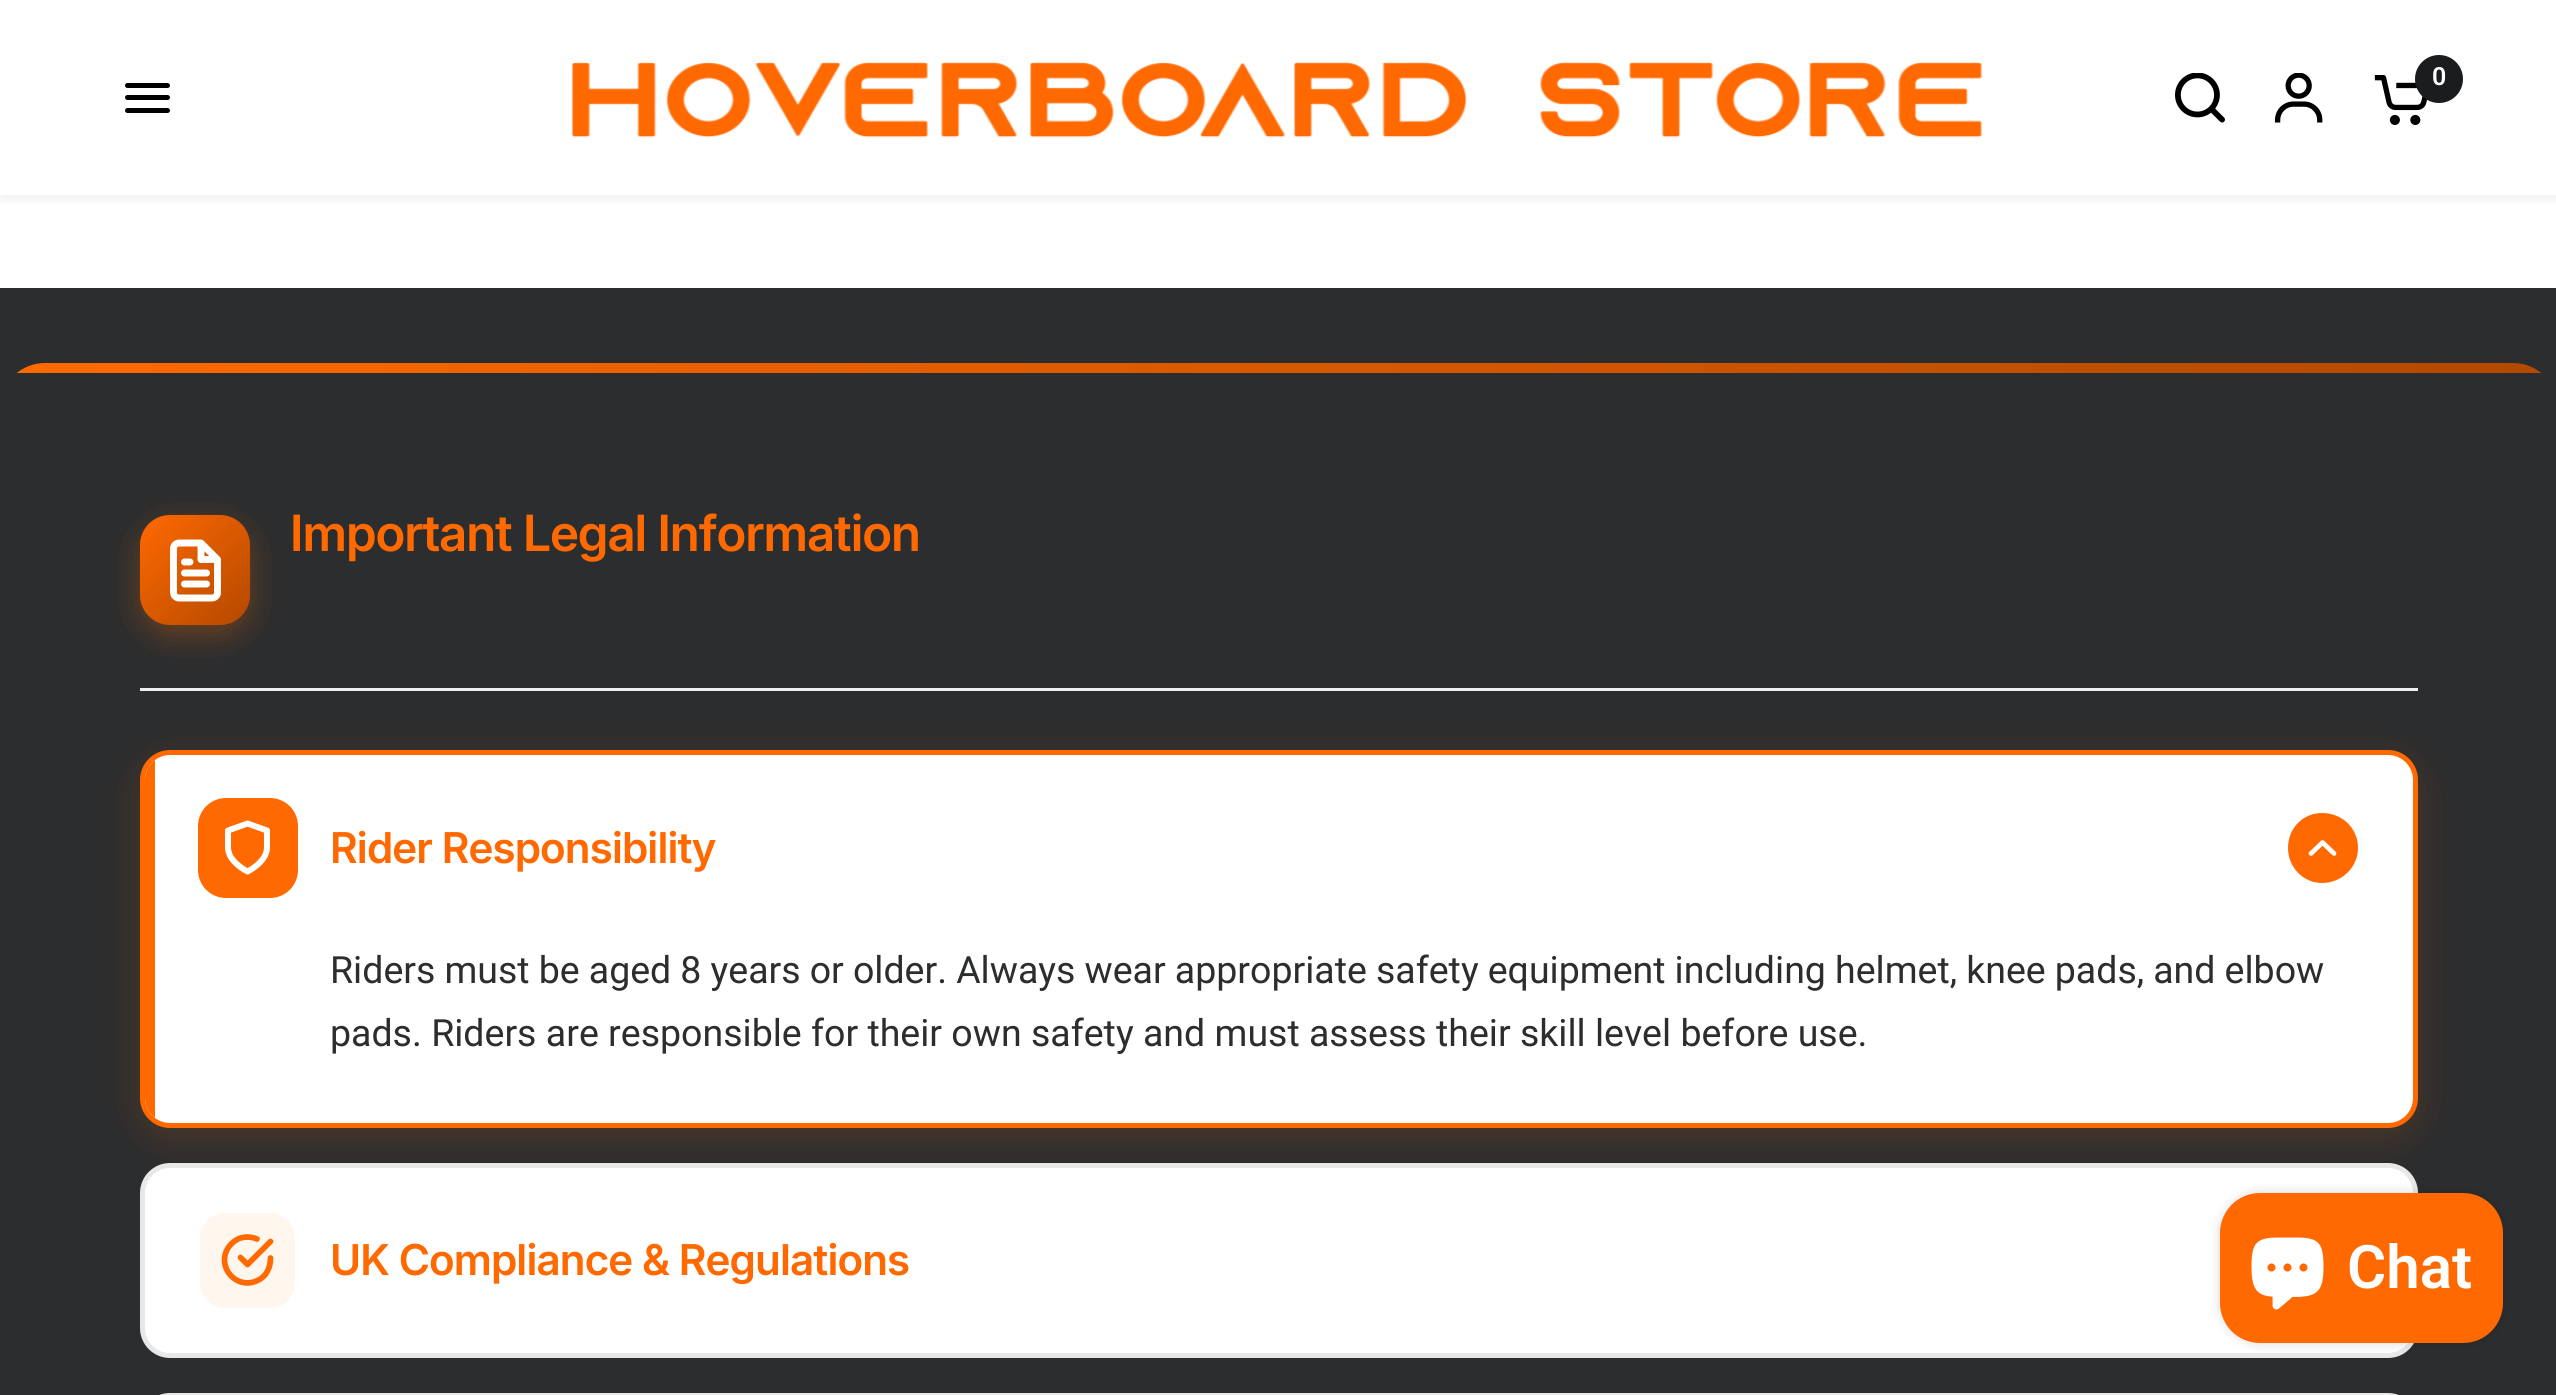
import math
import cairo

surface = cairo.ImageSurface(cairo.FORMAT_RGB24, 2556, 1395)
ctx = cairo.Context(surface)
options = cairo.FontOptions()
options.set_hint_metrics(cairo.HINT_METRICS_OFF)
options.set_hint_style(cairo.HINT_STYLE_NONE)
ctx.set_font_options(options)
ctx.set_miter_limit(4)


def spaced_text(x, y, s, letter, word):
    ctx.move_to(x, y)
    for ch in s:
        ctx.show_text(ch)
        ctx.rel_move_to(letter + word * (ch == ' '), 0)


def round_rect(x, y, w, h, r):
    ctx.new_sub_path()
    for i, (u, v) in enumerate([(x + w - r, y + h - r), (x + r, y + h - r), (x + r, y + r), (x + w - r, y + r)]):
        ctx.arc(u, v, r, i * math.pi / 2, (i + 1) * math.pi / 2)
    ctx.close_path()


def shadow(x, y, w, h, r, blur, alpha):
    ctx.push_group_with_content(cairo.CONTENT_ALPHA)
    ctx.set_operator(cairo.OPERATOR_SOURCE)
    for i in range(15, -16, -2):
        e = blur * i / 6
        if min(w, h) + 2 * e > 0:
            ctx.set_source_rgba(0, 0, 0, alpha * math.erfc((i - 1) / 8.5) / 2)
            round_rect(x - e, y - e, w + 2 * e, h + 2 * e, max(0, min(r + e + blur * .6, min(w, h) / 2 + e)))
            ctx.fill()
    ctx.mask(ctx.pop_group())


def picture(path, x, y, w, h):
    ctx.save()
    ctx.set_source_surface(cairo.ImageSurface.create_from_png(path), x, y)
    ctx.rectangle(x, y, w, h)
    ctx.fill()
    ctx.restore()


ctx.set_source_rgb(0.173, 0.176, 0.18)
ctx.paint()
ctx.set_source_rgb(1, 1, 1)
ctx.rectangle(0, 0, 2556, 288)
ctx.fill()
ctx.save()
ctx.rectangle(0, 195, 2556, 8)
ctx.clip()
ctx.set_source_rgb(0, 0, 0)
shadow(0, 5, 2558, 195, 0, 6, 0.06)
ctx.restore()
picture("img1.png", 571, 62, 1412, 76)
picture("img2.png", 2175, 73, 50, 50)
picture("img3.png", 2275, 73, 48, 50)
picture("img4.png", 2374, 75, 54, 50)
ctx.set_source_rgb(0.102, 0.11, 0.114)
ctx.arc(2439, 79, 24, 0, 2 * math.pi)
ctx.fill()
ctx.select_font_face("Roboto SemiBold")
ctx.set_font_size(25)
ctx.set_source_rgb(1, 1, 1)
ctx.move_to(2432, 85)
ctx.show_text("0")
ctx.set_source_rgb(0, 0, 0)
round_rect(125, 83, 45, 5, 2.5)
ctx.fill()
round_rect(125, 95, 45, 5, 2.5)
ctx.fill()
round_rect(125, 108, 45, 5, 2.5)
ctx.fill()
ctx.save()
round_rect(0, 363, 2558, 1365, 45)
ctx.clip()
gradient = cairo.LinearGradient(0, 368, 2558, 367)
gradient.add_color_stop_rgba(0, 1, 0.412, 0, 1)
gradient.add_color_stop_rgba(1, 0.702, 0.286, 0, 1)
ctx.set_source(gradient)
ctx.rectangle(16, 363, 2526, 10)
ctx.fill()
ctx.restore()
ctx.set_source_rgb(0.937, 0.937, 0.937)
ctx.rectangle(140, 688, 2278, 3)
ctx.fill()
ctx.set_source_rgb(1, 0.412, 0)
shadow(140, 525, 110, 110, 30, 15, 0.3)
gradient = cairo.LinearGradient(140, 515, 250, 625)
gradient.add_color_stop_rgba(0, 1, 0.412, 0, 1)
gradient.add_color_stop_rgba(1, 0.702, 0.286, 0, 1)
ctx.set_source(gradient)
round_rect(140, 515, 110, 110, 30)
ctx.fill()
ctx.new_path()
ctx.move_to(201, 543)
ctx.line_to(179, 543)
ctx.curve_to(176, 543, 173.5, 545.5, 173.5, 548.5)
ctx.line_to(173.5, 592.5)
ctx.curve_to(173.5, 595.5, 176, 598, 179, 598)
ctx.line_to(212, 598)
ctx.curve_to(215, 598, 217.5, 595.5, 217.5, 592.5)
ctx.line_to(217.5, 559.5)
ctx.close_path()
ctx.move_to(201, 543)
ctx.line_to(201, 559.5)
ctx.line_to(217.5, 559.5)
ctx.move_to(206.5, 573)
ctx.line_to(184.5, 573)
ctx.move_to(206.5, 584)
ctx.line_to(184.5, 584)
ctx.move_to(190, 562)
ctx.line_to(184.5, 562)
ctx.set_source_rgb(1, 1, 1)
ctx.set_line_width(6.9)
ctx.set_line_cap(cairo.LINE_CAP_ROUND)
ctx.set_line_join(cairo.LINE_JOIN_ROUND)
ctx.stroke()
ctx.select_font_face("Inter SemiBold")
ctx.set_font_size(50)
ctx.set_source_rgb(1, 0.412, 0)
spaced_text(290, 551, "Important Legal Information", -1, 0)
ctx.set_source_rgb(1, 0.412, 0)
shadow(140, 760, 2278, 378, 30, 20, 0.15)
ctx.set_source_rgb(1, 1, 1)
round_rect(142.5, 752.5, 2273, 373, 27.5)
ctx.fill_preserve()
ctx.set_source_rgb(1, 0.412, 0)
ctx.set_line_width(5)
ctx.set_line_cap(cairo.LINE_CAP_BUTT)
ctx.set_line_join(cairo.LINE_JOIN_MITER)
ctx.stroke()
ctx.save()
round_rect(145, 755, 2268, 368, 25)
ctx.clip()
ctx.rectangle(145, 760, 10, 358)
ctx.fill()
ctx.restore()
round_rect(198, 798, 100, 100, 28)
ctx.fill()
ctx.new_path()
ctx.move_to(247.5, 871.5)
ctx.curve_to(247.5, 871.5, 267, 862, 267, 847.5)
ctx.line_to(267, 830.5)
ctx.line_to(247.5, 823.5)
ctx.line_to(228, 830.5)
ctx.line_to(228, 847.5)
ctx.curve_to(228, 862, 247.5, 871.5, 247.5, 871.5)
ctx.close_path()
ctx.set_source_rgb(1, 1, 1)
ctx.set_line_width(6)
ctx.set_line_cap(cairo.LINE_CAP_ROUND)
ctx.set_line_join(cairo.LINE_JOIN_ROUND)
ctx.stroke()
ctx.select_font_face("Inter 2 SemiBold")
ctx.set_font_size(42.5)
ctx.set_source_rgb(1, 0.412, 0)
spaced_text(330, 863, "Rider Responsibility", -0.85, 0)
ctx.new_path()
ctx.move_to(2322, 883)
ctx.curve_to(2303, 883, 2288, 867, 2288, 848)
ctx.curve_to(2288, 828, 2303, 813, 2322, 813)
ctx.curve_to(2342, 813, 2358, 828, 2358, 848)
ctx.curve_to(2358, 867, 2342, 883, 2322, 883)
ctx.close_path()
ctx.fill()
ctx.new_path()
ctx.move_to(2334, 853.5)
ctx.line_to(2322.5, 842.5)
ctx.line_to(2311, 853.5)
ctx.set_source_rgb(1, 1, 1)
ctx.set_line_width(4.7)
ctx.stroke()
ctx.select_font_face("Roboto")
ctx.set_font_size(37.5)
ctx.set_source_rgb(0.173, 0.176, 0.18)
spaced_text(330, 983, "Riders must be aged 8 years or older. Always wear appropriate safety equipment including helmet, knee pads, and elbow", 0, -0.2)
ctx.move_to(330, 1046)
ctx.show_text("pads. Riders are responsible for their own safety and must assess their skill level before use.")
ctx.set_source_rgb(1, 1, 1)
round_rect(142.5, 1165.5, 2273, 190, 27.5)
ctx.fill_preserve()
ctx.set_source_rgb(0.91, 0.91, 0.91)
ctx.set_line_width(5)
ctx.set_line_cap(cairo.LINE_CAP_BUTT)
ctx.set_line_join(cairo.LINE_JOIN_MITER)
ctx.stroke()
ctx.set_source_rgb(1, 0.961, 0.929)
round_rect(200, 1213, 95, 95, 25)
ctx.fill()
ctx.new_path()
ctx.move_to(270.5, 1258)
ctx.curve_to(270.5, 1267.5, 266.5, 1276.5, 257.5, 1280.5)
ctx.curve_to(237, 1290.5, 216, 1267.5, 228, 1248)
ctx.curve_to(230.5, 1244, 234.5, 1240.5, 239, 1238.5)
ctx.curve_to(244.5, 1236.5, 251, 1236.5, 257, 1239)
ctx.move_to(270.5, 1241.5)
ctx.line_to(247.5, 1264.5)
ctx.line_to(240.5, 1257.5)
ctx.set_source_rgb(1, 0.412, 0)
ctx.set_line_width(5.7)
ctx.set_line_cap(cairo.LINE_CAP_ROUND)
ctx.set_line_join(cairo.LINE_JOIN_ROUND)
ctx.stroke()
ctx.select_font_face("Inter 2 SemiBold")
ctx.set_font_size(42.5)
spaced_text(330, 1275, "UK Compliance & Regulations", -0.85, 0)
round_rect(142.5, 1395.5, 2273, 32, 27.5)
ctx.set_source_rgb(0.91, 0.91, 0.91)
ctx.set_line_width(5)
ctx.set_line_cap(cairo.LINE_CAP_BUTT)
ctx.set_line_join(cairo.LINE_JOIN_MITER)
ctx.stroke()
ctx.set_source_rgb(0, 0, 0)
shadow(2220, 1193, 283, 150, 40, 6, 0.15)
ctx.set_source_rgb(1, 0.412, 0)
round_rect(2220, 1193, 283, 150, 40)
ctx.fill()
picture("img5.png", 2251, 1237, 73, 73)
ctx.select_font_face("Roboto SemiBold")
ctx.set_font_size(60)
ctx.set_source_rgb(1, 1, 1)
ctx.move_to(2347, 1288)
ctx.show_text("Chat")
surface.write_to_png("page.png")
